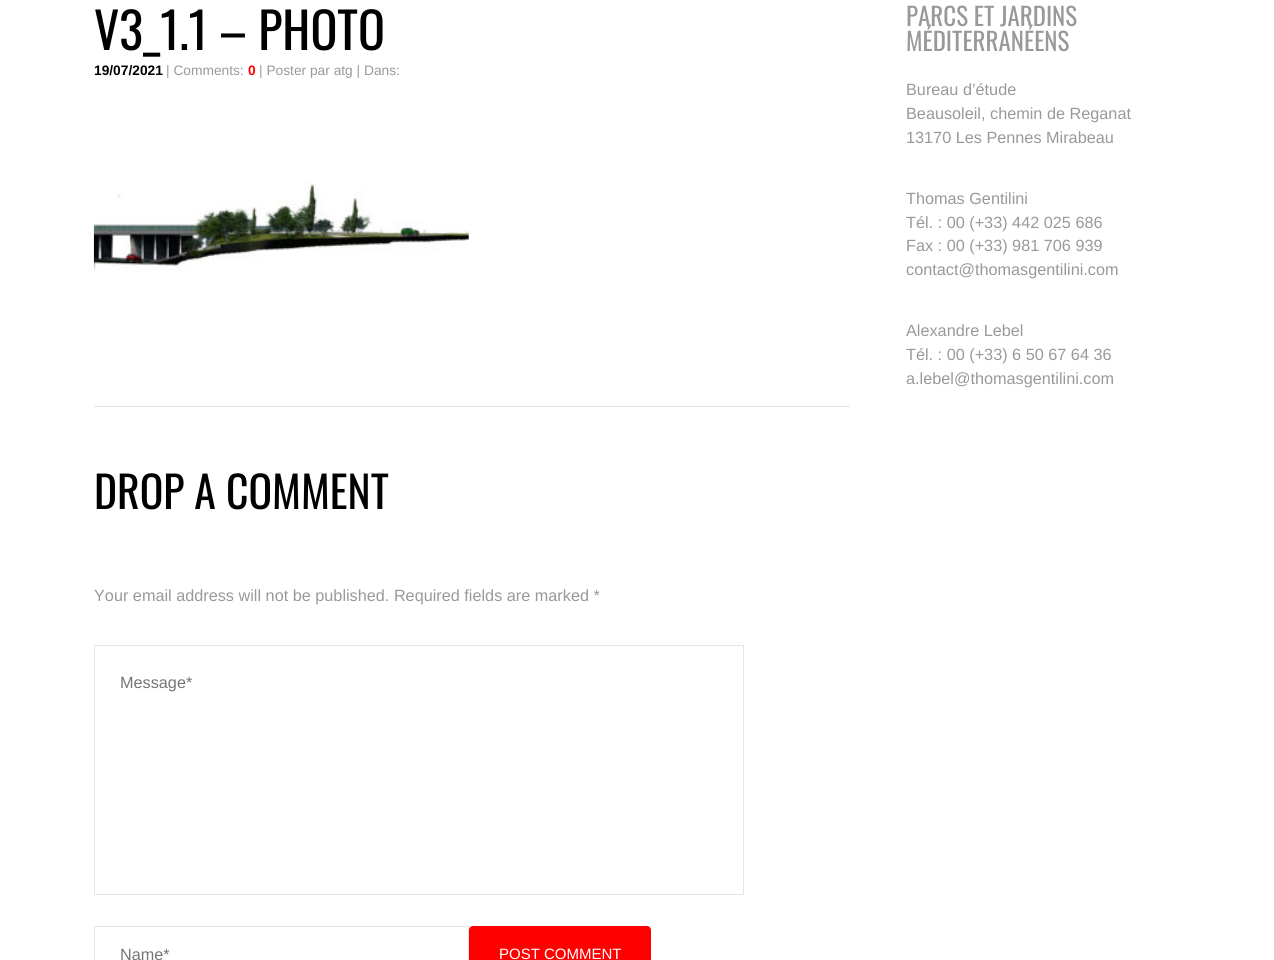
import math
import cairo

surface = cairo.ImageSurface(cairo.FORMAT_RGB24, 1274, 960)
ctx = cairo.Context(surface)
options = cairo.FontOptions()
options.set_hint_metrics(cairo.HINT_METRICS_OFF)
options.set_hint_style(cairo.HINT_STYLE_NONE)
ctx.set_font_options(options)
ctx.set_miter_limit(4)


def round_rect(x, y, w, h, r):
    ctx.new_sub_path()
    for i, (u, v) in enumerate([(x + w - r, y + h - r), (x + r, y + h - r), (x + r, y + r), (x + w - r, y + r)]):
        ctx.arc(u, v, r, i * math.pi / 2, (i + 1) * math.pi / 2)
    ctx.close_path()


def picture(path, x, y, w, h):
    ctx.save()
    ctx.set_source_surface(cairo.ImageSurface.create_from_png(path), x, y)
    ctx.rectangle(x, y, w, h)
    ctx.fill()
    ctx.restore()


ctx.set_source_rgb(1, 1, 1)
ctx.paint()
ctx.set_source_rgb(0.902, 0.902, 0.902)
ctx.rectangle(94, 406, 756, 1)
ctx.fill()
ctx.select_font_face("Oswald")
ctx.set_font_size(50)
ctx.set_source_rgb(0, 0, 0)
ctx.move_to(94, 50)
ctx.show_text("V3_1.1 – PHOTO")
ctx.select_font_face("Liberation Sans", cairo.FONT_SLANT_NORMAL, cairo.FONT_WEIGHT_BOLD)
ctx.set_font_size(13.75)
ctx.move_to(94, 75)
ctx.show_text("19/07/2021")
ctx.select_font_face("Liberation Sans")
ctx.set_source_rgb(0.6, 0.6, 0.6)
ctx.move_to(166, 75)
ctx.show_text("| Comments:")
ctx.select_font_face("Liberation Sans", cairo.FONT_SLANT_NORMAL, cairo.FONT_WEIGHT_BOLD)
ctx.set_source_rgb(1, 0, 0)
ctx.move_to(248, 75)
ctx.show_text("0")
ctx.select_font_face("Liberation Sans")
ctx.set_source_rgb(0.6, 0.6, 0.6)
ctx.move_to(259, 75)
ctx.show_text("| Poster par atg | Dans:")
picture("img1.png", 93, 182, 376, 89)
ctx.select_font_face("Oswald")
ctx.set_font_size(43.75)
ctx.set_source_rgb(0, 0, 0)
ctx.move_to(94, 509)
ctx.show_text("DROP A COMMENT")
ctx.select_font_face("Liberation Sans")
ctx.set_font_size(16.25)
ctx.set_source_rgb(0.6, 0.6, 0.6)
ctx.move_to(94, 601)
ctx.show_text("Your email address will not be published. Required fields are marked *")
ctx.rectangle(94.5, 645.5, 649, 249)
ctx.set_source_rgb(0.902, 0.902, 0.902)
ctx.set_line_width(1)
ctx.stroke()
ctx.set_source_rgb(0.459, 0.459, 0.459)
ctx.move_to(120, 688)
ctx.show_text("Message*")
ctx.rectangle(94.5, 926.5, 374, 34)
ctx.set_source_rgb(0.902, 0.902, 0.902)
ctx.stroke()
ctx.set_source_rgb(0.459, 0.459, 0.459)
ctx.move_to(120, 960)
ctx.show_text("Name*")
ctx.set_source_rgb(1, 0, 0)
round_rect(469, 926, 182, 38, 4)
ctx.fill()
ctx.set_font_size(15)
ctx.set_source_rgb(1, 1, 1)
ctx.move_to(499, 959)
ctx.show_text("POST COMMENT")
ctx.select_font_face("Oswald")
ctx.set_font_size(25)
ctx.set_source_rgb(0.6, 0.6, 0.6)
ctx.move_to(906, 26)
ctx.show_text("PARCS ET JARDINS")
ctx.move_to(906, 51)
ctx.show_text("MÉDITERRANÉENS")
ctx.select_font_face("Liberation Sans")
ctx.set_font_size(16.25)
ctx.move_to(906, 95)
ctx.show_text("Bureau d’étude")
ctx.move_to(906, 119)
ctx.show_text("Beausoleil, chemin de Reganat")
ctx.move_to(906, 143)
ctx.show_text("13170 Les Pennes Mirabeau")
ctx.move_to(906, 204)
ctx.show_text("Thomas Gentilini")
ctx.move_to(906, 228)
ctx.show_text("Tél. : 00 (+33) 442 025 686")
ctx.move_to(906, 251)
ctx.show_text("Fax : 00 (+33) 981 706 939")
ctx.move_to(906, 275)
ctx.show_text("contact@thomasgentilini.com")
ctx.move_to(906, 336)
ctx.show_text("Alexandre Lebel")
ctx.move_to(906, 360)
ctx.show_text("Tél. : 00 (+33) 6 50 67 64 36")
ctx.move_to(906, 384)
ctx.show_text("a.lebel@thomasgentilini.com")
surface.write_to_png("page.png")
